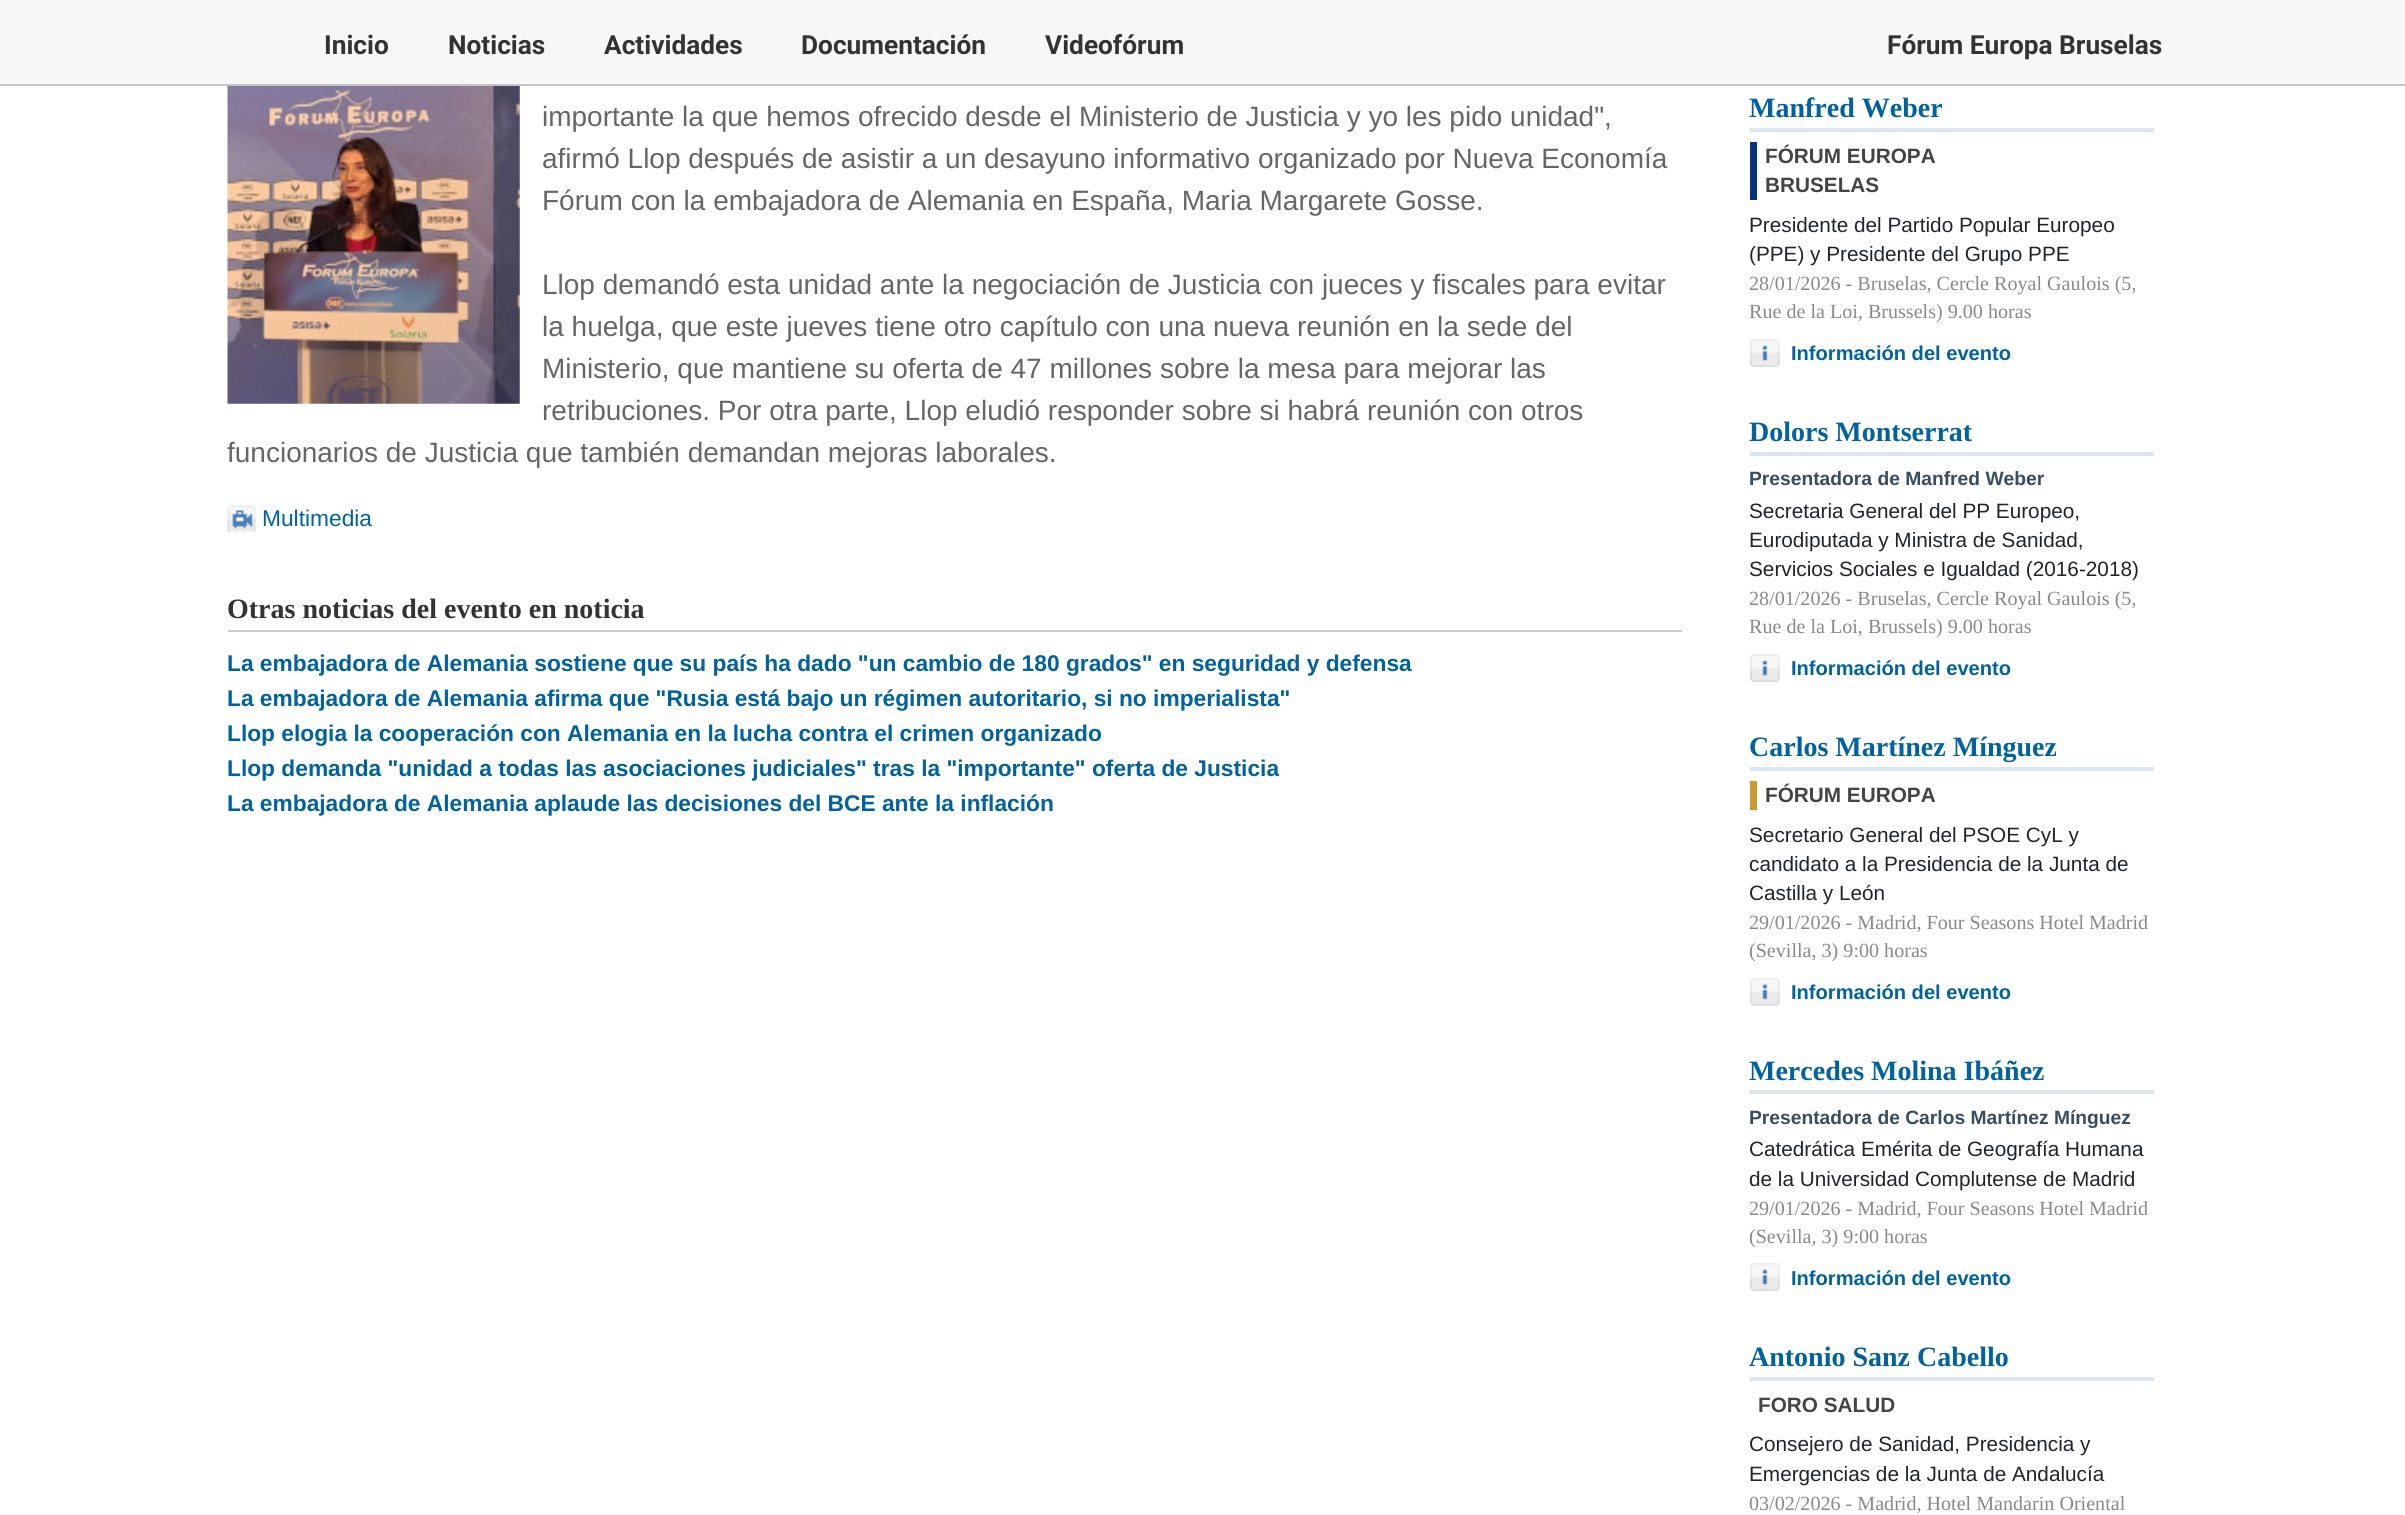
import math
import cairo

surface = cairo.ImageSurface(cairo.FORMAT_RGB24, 2405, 1515)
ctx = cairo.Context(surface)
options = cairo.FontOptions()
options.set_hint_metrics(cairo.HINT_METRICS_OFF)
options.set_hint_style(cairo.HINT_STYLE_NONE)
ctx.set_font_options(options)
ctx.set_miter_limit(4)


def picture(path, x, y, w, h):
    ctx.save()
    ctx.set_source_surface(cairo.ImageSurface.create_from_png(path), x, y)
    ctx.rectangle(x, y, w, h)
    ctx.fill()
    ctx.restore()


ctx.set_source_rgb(1, 1, 1)
ctx.paint()
ctx.set_source_rgb(0.965, 0.965, 0.965)
ctx.rectangle(0, 0, 2405, 84)
ctx.fill()
ctx.set_source_rgb(0.773, 0.773, 0.773)
ctx.rectangle(0, 84, 2405, 2)
ctx.fill()
ctx.select_font_face("Roboto", cairo.FONT_SLANT_NORMAL, cairo.FONT_WEIGHT_BOLD)
ctx.set_font_size(26.25)
ctx.set_source_rgb(0.2, 0.2, 0.2)
ctx.move_to(324, 54)
ctx.show_text("Inicio")
ctx.move_to(448, 54)
ctx.show_text("Noticias")
ctx.move_to(604, 54)
ctx.show_text("Actividades")
ctx.move_to(801, 54)
ctx.show_text("Documentación")
ctx.move_to(1045, 54)
ctx.show_text("Videofórum")
ctx.move_to(1887, 54)
ctx.show_text("Fórum Europa Bruselas")
picture("img1.png", 227, 86, 293, 318)
ctx.select_font_face("Liberation Sans")
ctx.set_font_size(28)
ctx.set_source_rgb(0.4, 0.4, 0.4)
ctx.move_to(542, 126)
ctx.show_text("importante la que hemos ofrecido desde el Ministerio de Justicia y yo les pido unidad\",")
ctx.move_to(542, 168)
ctx.show_text("afirmó Llop después de asistir a un desayuno informativo organizado por Nueva Economía")
ctx.move_to(542, 210)
ctx.show_text("Fórum con la embajadora de Alemania en España, Maria Margarete Gosse.")
ctx.move_to(542, 294)
ctx.show_text("Llop demandó esta unidad ante la negociación de Justicia con jueces y fiscales para evitar")
ctx.move_to(542, 336)
ctx.show_text("la huelga, que este jueves tiene otro capítulo con una nueva reunión en la sede del")
ctx.move_to(542, 378)
ctx.show_text("Ministerio, que mantiene su oferta de 47 millones sobre la mesa para mejorar las")
ctx.move_to(542, 420)
ctx.show_text("retribuciones. Por otra parte, Llop eludió responder sobre si habrá reunión con otros")
ctx.move_to(227, 462)
ctx.show_text("funcionarios de Justicia que también demandan mejoras laborales.")
picture("img2.png", 227, 505, 29, 27)
ctx.set_font_size(22.75)
ctx.set_source_rgb(0, 0.384, 0.627)
ctx.move_to(262, 526)
ctx.show_text("Multimedia")
ctx.set_source_rgb(0.8, 0.8, 0.8)
ctx.rectangle(228, 630, 1454, 2)
ctx.fill()
ctx.select_font_face("Liberation Serif", cairo.FONT_SLANT_NORMAL, cairo.FONT_WEIGHT_BOLD)
ctx.set_font_size(28)
ctx.set_source_rgb(0.2, 0.2, 0.2)
ctx.move_to(227, 618)
ctx.show_text("Otras noticias del evento en noticia")
ctx.select_font_face("Liberation Sans", cairo.FONT_SLANT_NORMAL, cairo.FONT_WEIGHT_BOLD)
ctx.set_font_size(22.75)
ctx.set_source_rgb(0, 0.384, 0.627)
ctx.move_to(227, 671)
ctx.show_text("La embajadora de Alemania sostiene que su país ha dado \"un cambio de 180 grados\" en seguridad y defensa")
ctx.move_to(227, 706)
ctx.show_text("La embajadora de Alemania afirma que \"Rusia está bajo un régimen autoritario, si no imperialista\"")
ctx.move_to(227, 741)
ctx.show_text("Llop elogia la cooperación con Alemania en la lucha contra el crimen organizado")
ctx.move_to(227, 776)
ctx.show_text("Llop demanda \"unidad a todas las asociaciones judiciales\" tras la \"importante\" oferta de Justicia")
ctx.move_to(227, 811)
ctx.show_text("La embajadora de Alemania aplaude las decisiones del BCE ante la inflación")
ctx.set_source_rgb(0.859, 0.902, 0.945)
ctx.rectangle(1750, 128, 404, 4)
ctx.fill()
ctx.select_font_face("Liberation Serif", cairo.FONT_SLANT_NORMAL, cairo.FONT_WEIGHT_BOLD)
ctx.set_font_size(28)
ctx.set_source_rgb(0, 0.384, 0.627)
ctx.move_to(1749, 117)
ctx.show_text("Manfred Weber")
ctx.set_source_rgb(0.031, 0.2, 0.51)
ctx.rectangle(1750, 142, 7, 58)
ctx.fill()
ctx.select_font_face("Liberation Sans", cairo.FONT_SLANT_NORMAL, cairo.FONT_WEIGHT_BOLD)
ctx.set_font_size(20.75)
ctx.set_source_rgb(0.267, 0.267, 0.267)
ctx.move_to(1765, 163)
ctx.show_text("FÓRUM EUROPA")
ctx.move_to(1765, 192)
ctx.show_text("BRUSELAS")
ctx.select_font_face("Liberation Sans")
ctx.set_source_rgb(0.129, 0.145, 0.161)
ctx.move_to(1749, 232)
ctx.show_text("Presidente del Partido Popular Europeo")
ctx.move_to(1749, 261)
ctx.show_text("(PPE) y Presidente del Grupo PPE")
ctx.select_font_face("Liberation Serif")
ctx.set_font_size(20.1)
ctx.set_source_rgb(0.537, 0.537, 0.537)
ctx.move_to(1749, 290)
ctx.show_text("28/01/2026 - Bruselas, Cercle Royal Gaulois (5,")
ctx.move_to(1749, 318)
ctx.show_text("Rue de la Loi, Brussels) 9.00 horas")
picture("img3.png", 1750, 339, 30, 28)
ctx.select_font_face("Liberation Sans", cairo.FONT_SLANT_NORMAL, cairo.FONT_WEIGHT_BOLD)
ctx.set_source_rgb(0, 0.384, 0.627)
ctx.move_to(1791, 360)
ctx.show_text("Información del evento")
ctx.set_source_rgb(0.859, 0.902, 0.945)
ctx.rectangle(1750, 452, 404, 4)
ctx.fill()
ctx.select_font_face("Liberation Serif", cairo.FONT_SLANT_NORMAL, cairo.FONT_WEIGHT_BOLD)
ctx.set_font_size(28)
ctx.set_source_rgb(0, 0.384, 0.627)
ctx.move_to(1749, 441)
ctx.show_text("Dolors Montserrat")
ctx.select_font_face("Liberation Sans", cairo.FONT_SLANT_NORMAL, cairo.FONT_WEIGHT_BOLD)
ctx.set_font_size(19.25)
ctx.set_source_rgb(0.224, 0.302, 0.38)
ctx.move_to(1749, 485)
ctx.show_text("Presentadora de Manfred Weber")
ctx.select_font_face("Liberation Sans")
ctx.set_font_size(20.75)
ctx.set_source_rgb(0.129, 0.145, 0.161)
ctx.move_to(1749, 518)
ctx.show_text("Secretaria General del PP Europeo,")
ctx.move_to(1749, 547)
ctx.show_text("Eurodiputada y Ministra de Sanidad,")
ctx.move_to(1749, 576)
ctx.show_text("Servicios Sociales e Igualdad (2016-2018)")
ctx.select_font_face("Liberation Serif")
ctx.set_font_size(20.1)
ctx.set_source_rgb(0.537, 0.537, 0.537)
ctx.move_to(1749, 605)
ctx.show_text("28/01/2026 - Bruselas, Cercle Royal Gaulois (5,")
ctx.move_to(1749, 633)
ctx.show_text("Rue de la Loi, Brussels) 9.00 horas")
picture("img3.png", 1750, 654, 30, 28)
ctx.select_font_face("Liberation Sans", cairo.FONT_SLANT_NORMAL, cairo.FONT_WEIGHT_BOLD)
ctx.set_source_rgb(0, 0.384, 0.627)
ctx.move_to(1791, 675)
ctx.show_text("Información del evento")
ctx.set_source_rgb(0.859, 0.902, 0.945)
ctx.rectangle(1750, 767, 404, 4)
ctx.fill()
ctx.select_font_face("Liberation Serif", cairo.FONT_SLANT_NORMAL, cairo.FONT_WEIGHT_BOLD)
ctx.set_font_size(28)
ctx.set_source_rgb(0, 0.384, 0.627)
ctx.move_to(1749, 756)
ctx.show_text("Carlos Martínez Mínguez")
ctx.set_source_rgb(0.8, 0.6, 0.2)
ctx.rectangle(1750, 781, 7, 29)
ctx.fill()
ctx.select_font_face("Liberation Sans", cairo.FONT_SLANT_NORMAL, cairo.FONT_WEIGHT_BOLD)
ctx.set_font_size(20.75)
ctx.set_source_rgb(0.267, 0.267, 0.267)
ctx.move_to(1765, 802)
ctx.show_text("FÓRUM EUROPA")
ctx.select_font_face("Liberation Sans")
ctx.set_source_rgb(0.129, 0.145, 0.161)
ctx.move_to(1749, 842)
ctx.show_text("Secretario General del PSOE CyL y")
ctx.move_to(1749, 871)
ctx.show_text("candidato a la Presidencia de la Junta de")
ctx.move_to(1749, 900)
ctx.show_text("Castilla y León")
ctx.select_font_face("Liberation Serif")
ctx.set_font_size(20.1)
ctx.set_source_rgb(0.537, 0.537, 0.537)
ctx.move_to(1749, 929)
ctx.show_text("29/01/2026 - Madrid, Four Seasons Hotel Madrid")
ctx.move_to(1749, 957)
ctx.show_text("(Sevilla, 3) 9:00 horas")
picture("img4.png", 1750, 978, 30, 28)
ctx.select_font_face("Liberation Sans", cairo.FONT_SLANT_NORMAL, cairo.FONT_WEIGHT_BOLD)
ctx.set_source_rgb(0, 0.384, 0.627)
ctx.move_to(1791, 999)
ctx.show_text("Información del evento")
ctx.set_source_rgb(0.859, 0.902, 0.945)
ctx.rectangle(1750, 1090, 404, 4)
ctx.fill()
ctx.select_font_face("Liberation Serif", cairo.FONT_SLANT_NORMAL, cairo.FONT_WEIGHT_BOLD)
ctx.set_font_size(28)
ctx.set_source_rgb(0, 0.384, 0.627)
ctx.move_to(1749, 1080)
ctx.show_text("Mercedes Molina Ibáñez")
ctx.select_font_face("Liberation Sans", cairo.FONT_SLANT_NORMAL, cairo.FONT_WEIGHT_BOLD)
ctx.set_font_size(19.25)
ctx.set_source_rgb(0.224, 0.302, 0.38)
ctx.move_to(1749, 1124)
ctx.show_text("Presentadora de Carlos Martínez Mínguez")
ctx.select_font_face("Liberation Sans")
ctx.set_font_size(20.75)
ctx.set_source_rgb(0.129, 0.145, 0.161)
ctx.move_to(1749, 1156)
ctx.show_text("Catedrática Emérita de Geografía Humana")
ctx.move_to(1749, 1186)
ctx.show_text("de la Universidad Complutense de Madrid")
ctx.select_font_face("Liberation Serif")
ctx.set_font_size(20.1)
ctx.set_source_rgb(0.537, 0.537, 0.537)
ctx.move_to(1749, 1215)
ctx.show_text("29/01/2026 - Madrid, Four Seasons Hotel Madrid")
ctx.move_to(1749, 1243)
ctx.show_text("(Sevilla, 3) 9:00 horas")
picture("img3.png", 1750, 1263, 30, 28)
ctx.select_font_face("Liberation Sans", cairo.FONT_SLANT_NORMAL, cairo.FONT_WEIGHT_BOLD)
ctx.set_source_rgb(0, 0.384, 0.627)
ctx.move_to(1791, 1285)
ctx.show_text("Información del evento")
ctx.set_source_rgb(0.859, 0.902, 0.945)
ctx.rectangle(1750, 1377, 404, 4)
ctx.fill()
ctx.select_font_face("Liberation Serif", cairo.FONT_SLANT_NORMAL, cairo.FONT_WEIGHT_BOLD)
ctx.set_font_size(28)
ctx.set_source_rgb(0, 0.384, 0.627)
ctx.move_to(1749, 1366)
ctx.show_text("Antonio Sanz Cabello")
ctx.select_font_face("Liberation Sans", cairo.FONT_SLANT_NORMAL, cairo.FONT_WEIGHT_BOLD)
ctx.set_font_size(20.75)
ctx.set_source_rgb(0.267, 0.267, 0.267)
ctx.move_to(1758, 1412)
ctx.show_text("FORO SALUD")
ctx.select_font_face("Liberation Sans")
ctx.set_source_rgb(0.129, 0.145, 0.161)
ctx.move_to(1749, 1451)
ctx.show_text("Consejero de Sanidad, Presidencia y")
ctx.move_to(1749, 1481)
ctx.show_text("Emergencias de la Junta de Andalucía")
ctx.select_font_face("Liberation Serif")
ctx.set_font_size(20.1)
ctx.set_source_rgb(0.537, 0.537, 0.537)
ctx.move_to(1749, 1510)
ctx.show_text("03/02/2026 - Madrid, Hotel Mandarin Oriental")
surface.write_to_png("page.png")
